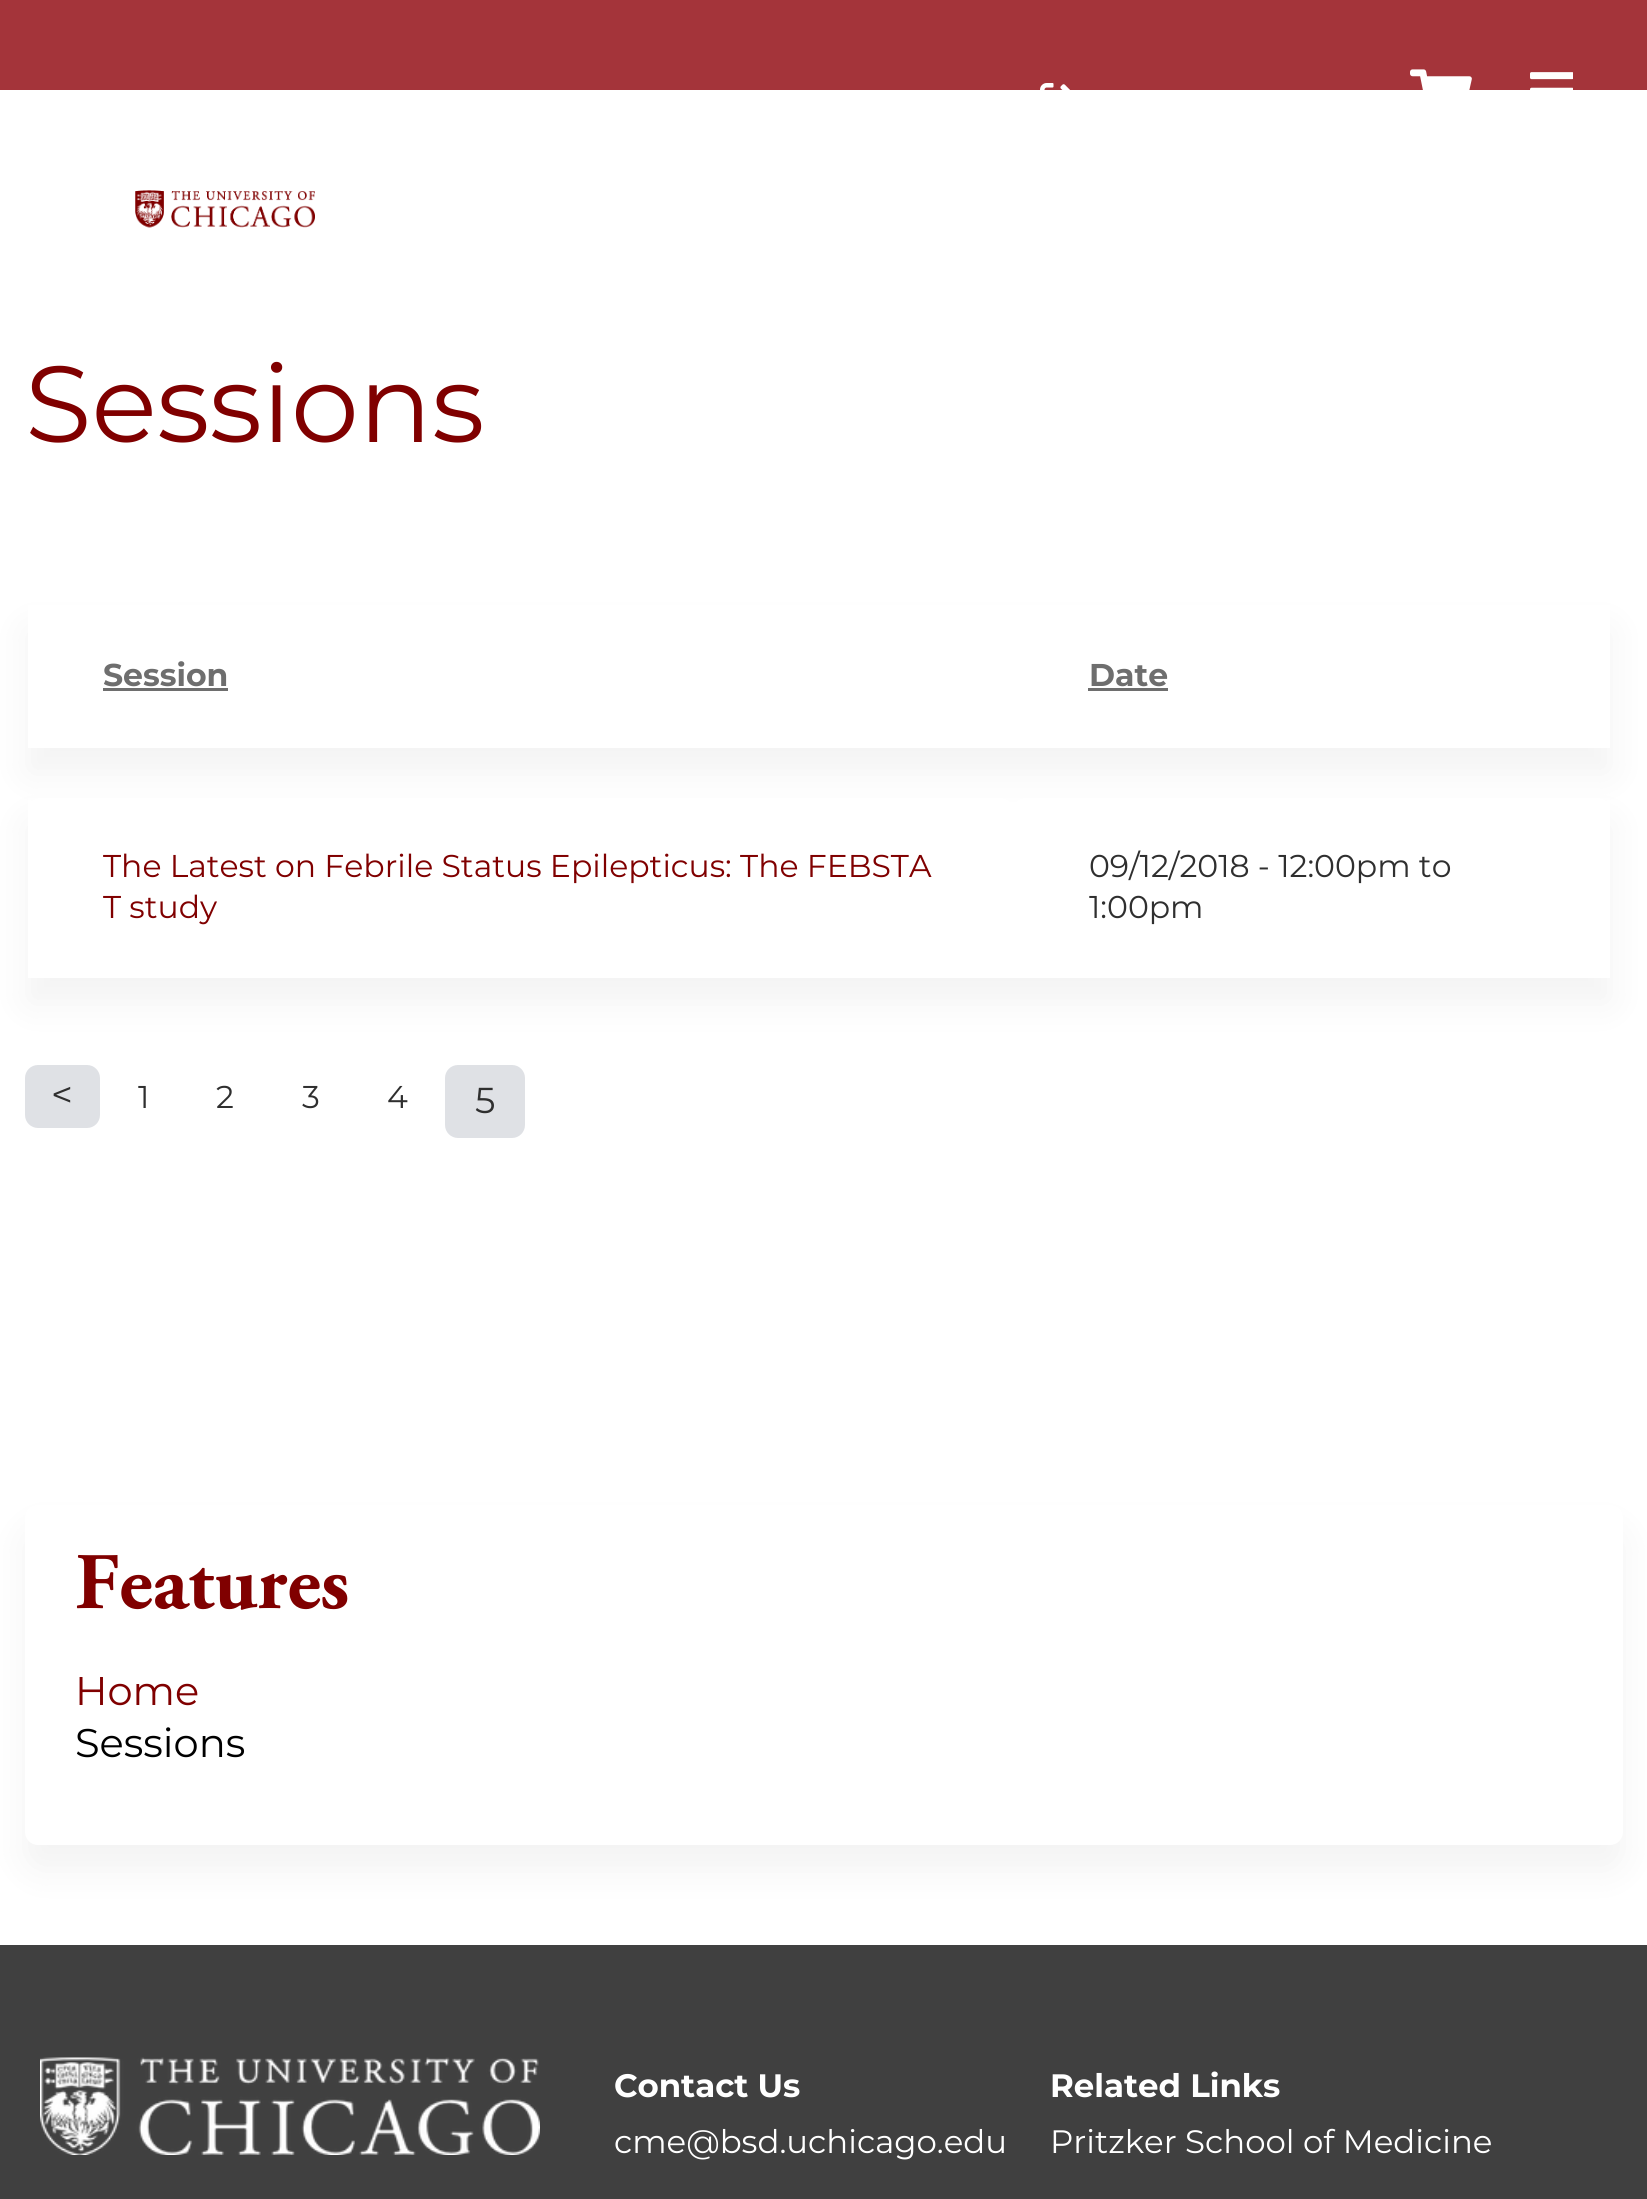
import math
import cairo

surface = cairo.ImageSurface(cairo.FORMAT_RGB24, 1647, 2199)
ctx = cairo.Context(surface)
options = cairo.FontOptions()
options.set_hint_metrics(cairo.HINT_METRICS_OFF)
options.set_hint_style(cairo.HINT_STYLE_NONE)
ctx.set_font_options(options)
ctx.set_miter_limit(4)


def round_rect(x, y, w, h, r):
    ctx.new_sub_path()
    for i, (u, v) in enumerate([(x + w - r, y + h - r), (x + r, y + h - r), (x + r, y + r), (x + w - r, y + r)]):
        ctx.arc(u, v, r, i * math.pi / 2, (i + 1) * math.pi / 2)
    ctx.close_path()


def shadow(x, y, w, h, r, blur, alpha):
    ctx.push_group_with_content(cairo.CONTENT_ALPHA)
    ctx.set_operator(cairo.OPERATOR_SOURCE)
    for i in range(15, -16, -2):
        e = blur * i / 6
        if min(w, h) + 2 * e > 0:
            ctx.set_source_rgba(0, 0, 0, alpha * math.erfc((i - 1) / 8.5) / 2)
            round_rect(x - e, y - e, w + 2 * e, h + 2 * e, max(0, min(r + e + blur * .6, min(w, h) / 2 + e)))
            ctx.fill()
    ctx.mask(ctx.pop_group())


def picture(path, x, y, w, h):
    ctx.save()
    ctx.set_source_surface(cairo.ImageSurface.create_from_png(path), x, y)
    ctx.rectangle(x, y, w, h)
    ctx.fill()
    ctx.restore()


ctx.set_source_rgb(1, 1, 1)
ctx.paint()
ctx.set_source_rgb(0.643, 0.204, 0.227)
ctx.rectangle(0, 0, 1647, 90)
ctx.fill()
picture("img1.png", 1040, 83, 30, 7)
picture("img2.png", 1410, 69, 62, 21)
picture("img3.png", 1530, 72, 43, 18)
picture("img4.png", 135, 190, 180, 38)
ctx.select_font_face("Montserrat")
ctx.set_font_size(108)
ctx.set_source_rgb(0.502, 0, 0)
ctx.move_to(25, 442)
ctx.show_text("Sessions")
ctx.save()
ctx.set_fill_rule(cairo.FILL_RULE_EVEN_ODD)
ctx.new_path()
ctx.move_to(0, 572)
ctx.line_to(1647, 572)
ctx.line_to(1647, 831)
ctx.line_to(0, 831)
ctx.close_path()
ctx.move_to(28, 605)
ctx.line_to(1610, 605)
ctx.line_to(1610, 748)
ctx.line_to(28, 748)
ctx.close_path()
ctx.clip()
ctx.set_source_rgb(0, 0, 0)
shadow(28, 630, 1582, 143, 0, 19, 0.05)
ctx.restore()
ctx.set_source_rgb(1, 1, 1)
round_rect(28, 605, 985, 143, 13)
ctx.fill()
ctx.select_font_face("Montserrat", cairo.FONT_SLANT_NORMAL, cairo.FONT_WEIGHT_BOLD)
ctx.set_font_size(31.5)
ctx.set_source_rgb(0.431, 0.431, 0.431)
ctx.move_to(103, 686)
ctx.show_text("Session")
ctx.rectangle(103, 688, 125, 3)
ctx.fill()
ctx.set_source_rgb(1, 1, 1)
round_rect(1013, 605, 597, 143, 13)
ctx.fill()
ctx.set_source_rgb(0.431, 0.431, 0.431)
ctx.move_to(1089, 686)
ctx.show_text("Date")
ctx.rectangle(1088, 688, 80, 3)
ctx.fill()
ctx.save()
ctx.set_fill_rule(cairo.FILL_RULE_EVEN_ODD)
ctx.new_path()
ctx.move_to(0, 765)
ctx.line_to(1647, 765)
ctx.line_to(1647, 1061)
ctx.line_to(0, 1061)
ctx.close_path()
ctx.move_to(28, 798)
ctx.line_to(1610, 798)
ctx.line_to(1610, 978)
ctx.line_to(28, 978)
ctx.close_path()
ctx.clip()
ctx.set_source_rgb(0, 0, 0)
shadow(28, 823, 1582, 180, 0, 19, 0.05)
ctx.restore()
ctx.set_source_rgb(1, 1, 1)
round_rect(28, 798, 985, 180, 13)
ctx.fill()
ctx.select_font_face("Montserrat")
ctx.set_source_rgb(0.502, 0, 0)
ctx.move_to(103, 877)
ctx.show_text("The Latest on Febrile Status Epilepticus: The FEBSTA")
ctx.move_to(103, 918)
ctx.show_text("T study")
ctx.set_source_rgb(1, 1, 1)
round_rect(1013, 798, 597, 180, 13)
ctx.fill()
ctx.set_source_rgb(0.184, 0.184, 0.184)
ctx.move_to(1089, 877)
ctx.show_text("09/12/2018 - 12:00pm to")
ctx.move_to(1089, 918)
ctx.show_text("1:00pm")
ctx.set_source_rgb(0.875, 0.882, 0.898)
round_rect(25, 1065, 75, 63, 13)
ctx.fill()
ctx.set_font_size(38)
ctx.set_source_rgb(0.184, 0.184, 0.184)
ctx.move_to(51, 1108)
ctx.show_text("<")
ctx.set_font_size(31.5)
ctx.move_to(138, 1108)
ctx.show_text("1")
ctx.move_to(216, 1108)
ctx.show_text("2")
ctx.move_to(302, 1108)
ctx.show_text("3")
ctx.move_to(387, 1108)
ctx.show_text("4")
ctx.set_source_rgb(0.875, 0.882, 0.898)
round_rect(445, 1065, 80, 73, 13)
ctx.fill()
ctx.set_font_size(36)
ctx.set_source_rgb(0.184, 0.184, 0.184)
ctx.move_to(475, 1113)
ctx.show_text("5")
ctx.set_source_rgb(0, 0, 0)
shadow(25, 1530, 1598, 340, 13, 19, 0.05)
ctx.set_source_rgb(1, 1, 1)
round_rect(25, 1505, 1598, 340, 13)
ctx.fill()
ctx.select_font_face("Adobe Garamond", cairo.FONT_SLANT_NORMAL, cairo.FONT_WEIGHT_BOLD)
ctx.set_font_size(80)
ctx.set_source_rgb(0.502, 0, 0)
ctx.move_to(75, 1608)
ctx.show_text("Features")
ctx.select_font_face("Montserrat")
ctx.set_font_size(40)
ctx.move_to(75, 1705)
ctx.show_text("Home")
ctx.set_source_rgb(0, 0, 0)
ctx.move_to(75, 1757)
ctx.show_text("Sessions")
ctx.set_source_rgb(0.251, 0.251, 0.251)
ctx.rectangle(0, 1945, 1647, 254)
ctx.fill()
picture("img5.png", 40, 2057, 500, 98)
ctx.select_font_face("Montserrat", cairo.FONT_SLANT_NORMAL, cairo.FONT_WEIGHT_BOLD)
ctx.set_font_size(32.4)
ctx.set_source_rgb(1, 1, 1)
ctx.move_to(614, 2097)
ctx.show_text("Contact Us")
ctx.select_font_face("Montserrat")
ctx.move_to(614, 2153)
ctx.show_text("cme@bsd.uchicago.edu")
ctx.select_font_face("Montserrat", cairo.FONT_SLANT_NORMAL, cairo.FONT_WEIGHT_BOLD)
ctx.move_to(1050, 2097)
ctx.show_text("Related Links")
ctx.select_font_face("Montserrat")
ctx.move_to(1050, 2153)
ctx.show_text("Pritzker School of Medicine")
surface.write_to_png("page.png")
